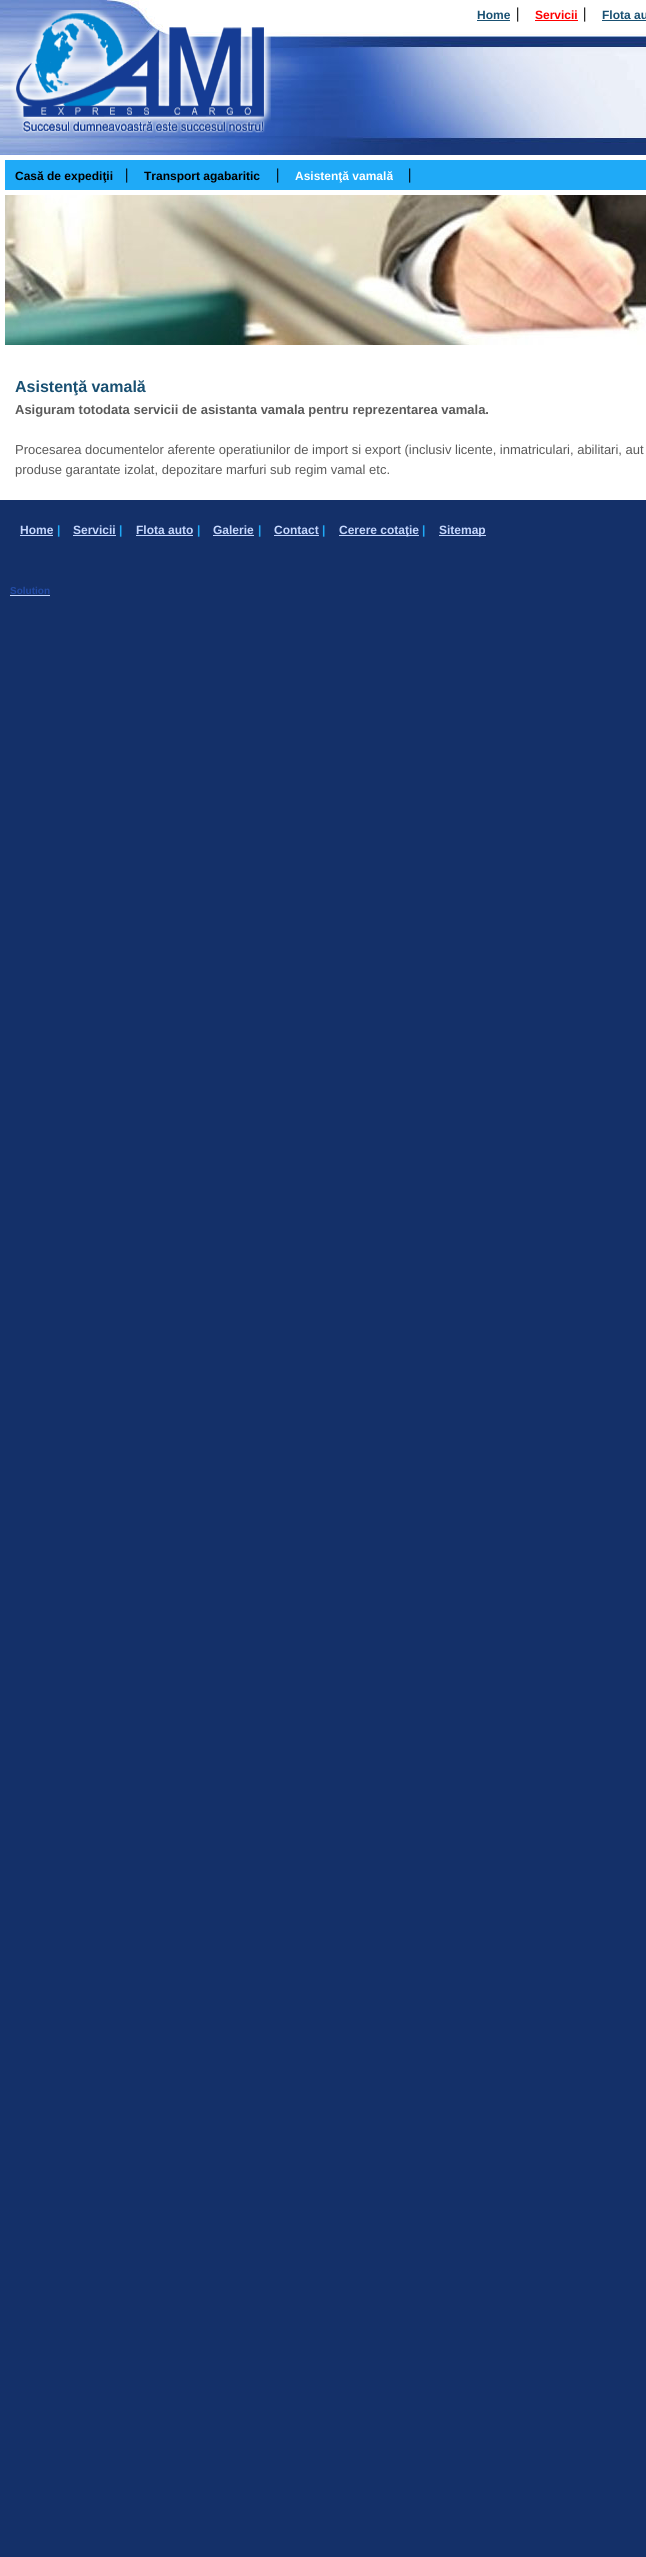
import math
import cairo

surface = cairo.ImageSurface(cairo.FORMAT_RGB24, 646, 2557)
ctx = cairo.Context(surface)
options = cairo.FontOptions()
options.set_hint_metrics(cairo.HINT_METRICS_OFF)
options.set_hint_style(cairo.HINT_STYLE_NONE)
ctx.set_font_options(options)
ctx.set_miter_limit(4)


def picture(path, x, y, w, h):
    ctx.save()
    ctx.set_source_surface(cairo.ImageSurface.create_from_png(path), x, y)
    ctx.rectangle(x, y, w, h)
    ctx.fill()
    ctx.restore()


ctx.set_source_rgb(0.082, 0.188, 0.412)
ctx.paint()
picture("img1.png", 0, 0, 646, 155)
picture("img2.png", 10, 10, 261, 123)
ctx.select_font_face("Liberation Sans", cairo.FONT_SLANT_NORMAL, cairo.FONT_WEIGHT_BOLD)
ctx.set_font_size(12)
ctx.set_source_rgb(0.098, 0.314, 0.447)
ctx.move_to(477, 19)
ctx.show_text("Home")
ctx.rectangle(477, 20, 33, 1)
ctx.fill()
ctx.select_font_face("Carlito")
ctx.set_font_size(16)
ctx.set_source_rgb(0, 0, 0)
ctx.move_to(514, 19)
ctx.show_text("|")
ctx.select_font_face("Liberation Sans", cairo.FONT_SLANT_NORMAL, cairo.FONT_WEIGHT_BOLD)
ctx.set_font_size(12)
ctx.set_source_rgb(1, 0, 0)
ctx.move_to(535, 19)
ctx.show_text("Servicii")
ctx.rectangle(535, 20, 43, 1)
ctx.fill()
ctx.select_font_face("Carlito")
ctx.set_font_size(16)
ctx.set_source_rgb(0, 0, 0)
ctx.move_to(581, 19)
ctx.show_text("|")
ctx.select_font_face("Liberation Sans", cairo.FONT_SLANT_NORMAL, cairo.FONT_WEIGHT_BOLD)
ctx.set_font_size(12)
ctx.set_source_rgb(0.098, 0.314, 0.447)
ctx.move_to(602, 19)
ctx.show_text("Flota au")
ctx.rectangle(602, 20, 44, 1)
ctx.fill()
ctx.set_source_rgb(1, 1, 1)
ctx.rectangle(0, 155, 646, 345)
ctx.fill()
ctx.set_source_rgb(0.122, 0.667, 0.965)
ctx.rectangle(5, 160, 641, 30)
ctx.fill()
ctx.set_source_rgb(0, 0, 0)
ctx.move_to(15, 180)
ctx.show_text("Casă de expediţii")
ctx.select_font_face("Carlito")
ctx.set_font_size(16)
ctx.move_to(123, 180)
ctx.show_text("|")
ctx.select_font_face("Liberation Sans", cairo.FONT_SLANT_NORMAL, cairo.FONT_WEIGHT_BOLD)
ctx.set_font_size(12)
ctx.move_to(144, 180)
ctx.show_text("Transport agabaritic")
ctx.select_font_face("Carlito")
ctx.set_font_size(16)
ctx.move_to(274, 180)
ctx.show_text("|")
ctx.select_font_face("Liberation Sans", cairo.FONT_SLANT_NORMAL, cairo.FONT_WEIGHT_BOLD)
ctx.set_font_size(12)
ctx.set_source_rgb(1, 1, 1)
ctx.move_to(295, 180)
ctx.show_text("Asistenţă vamală")
ctx.select_font_face("Carlito")
ctx.set_font_size(16)
ctx.set_source_rgb(0, 0, 0)
ctx.move_to(406, 180)
ctx.show_text("|")
picture("img3.png", 5, 195, 641, 150)
ctx.select_font_face("Liberation Sans", cairo.FONT_SLANT_NORMAL, cairo.FONT_WEIGHT_BOLD)
ctx.set_source_rgb(0.098, 0.314, 0.447)
ctx.move_to(15, 392)
ctx.show_text("Asistenţă vamală")
ctx.set_font_size(13)
ctx.set_source_rgb(0.353, 0.353, 0.353)
ctx.move_to(15, 414)
ctx.show_text("Asiguram totodata servicii de asistanta vamala pentru reprezentarea vamala.")
ctx.select_font_face("Liberation Sans")
ctx.move_to(15, 454)
ctx.show_text("Procesarea documentelor aferente operatiunilor de import si export (inclusiv licente, inmatriculari, abilitari, aut")
ctx.move_to(15, 474)
ctx.show_text("produse garantate izolat, depozitare marfuri sub regim vamal etc.")
ctx.select_font_face("Liberation Sans", cairo.FONT_SLANT_NORMAL, cairo.FONT_WEIGHT_BOLD)
ctx.set_font_size(12)
ctx.set_source_rgb(0.776, 0.847, 1)
ctx.move_to(20, 534)
ctx.show_text("Home")
ctx.rectangle(20, 535, 33, 1)
ctx.fill()
ctx.set_source_rgb(0.122, 0.667, 0.965)
ctx.move_to(57, 534)
ctx.show_text("|")
ctx.set_source_rgb(0.776, 0.847, 1)
ctx.move_to(73, 534)
ctx.show_text("Servicii")
ctx.rectangle(73, 535, 43, 1)
ctx.fill()
ctx.set_source_rgb(0.122, 0.667, 0.965)
ctx.move_to(119, 534)
ctx.show_text("|")
ctx.set_source_rgb(0.776, 0.847, 1)
ctx.move_to(136, 534)
ctx.show_text("Flota auto")
ctx.rectangle(136, 535, 57, 1)
ctx.fill()
ctx.set_source_rgb(0.122, 0.667, 0.965)
ctx.move_to(197, 534)
ctx.show_text("|")
ctx.set_source_rgb(0.776, 0.847, 1)
ctx.move_to(213, 534)
ctx.show_text("Galerie")
ctx.rectangle(213, 535, 41, 1)
ctx.fill()
ctx.set_source_rgb(0.122, 0.667, 0.965)
ctx.move_to(258, 534)
ctx.show_text("|")
ctx.set_source_rgb(0.776, 0.847, 1)
ctx.move_to(274, 534)
ctx.show_text("Contact")
ctx.rectangle(274, 535, 45, 1)
ctx.fill()
ctx.set_source_rgb(0.122, 0.667, 0.965)
ctx.move_to(322, 534)
ctx.show_text("|")
ctx.set_source_rgb(0.776, 0.847, 1)
ctx.rectangle(339, 535, 80, 1)
ctx.fill()
ctx.move_to(339, 534)
ctx.show_text("Cerere cotaţie")
ctx.set_source_rgb(0.122, 0.667, 0.965)
ctx.move_to(422, 534)
ctx.show_text("|")
ctx.set_source_rgb(0.776, 0.847, 1)
ctx.rectangle(439, 535, 47, 1)
ctx.fill()
ctx.move_to(439, 534)
ctx.show_text("Sitemap")
ctx.set_font_size(10)
ctx.set_source_rgb(0.133, 0.294, 0.651)
ctx.move_to(10, 594)
ctx.show_text("Solution")
ctx.set_source_rgb(0.776, 0.847, 1)
ctx.rectangle(10, 595, 40, 1)
ctx.fill()
surface.write_to_png("page.png")
